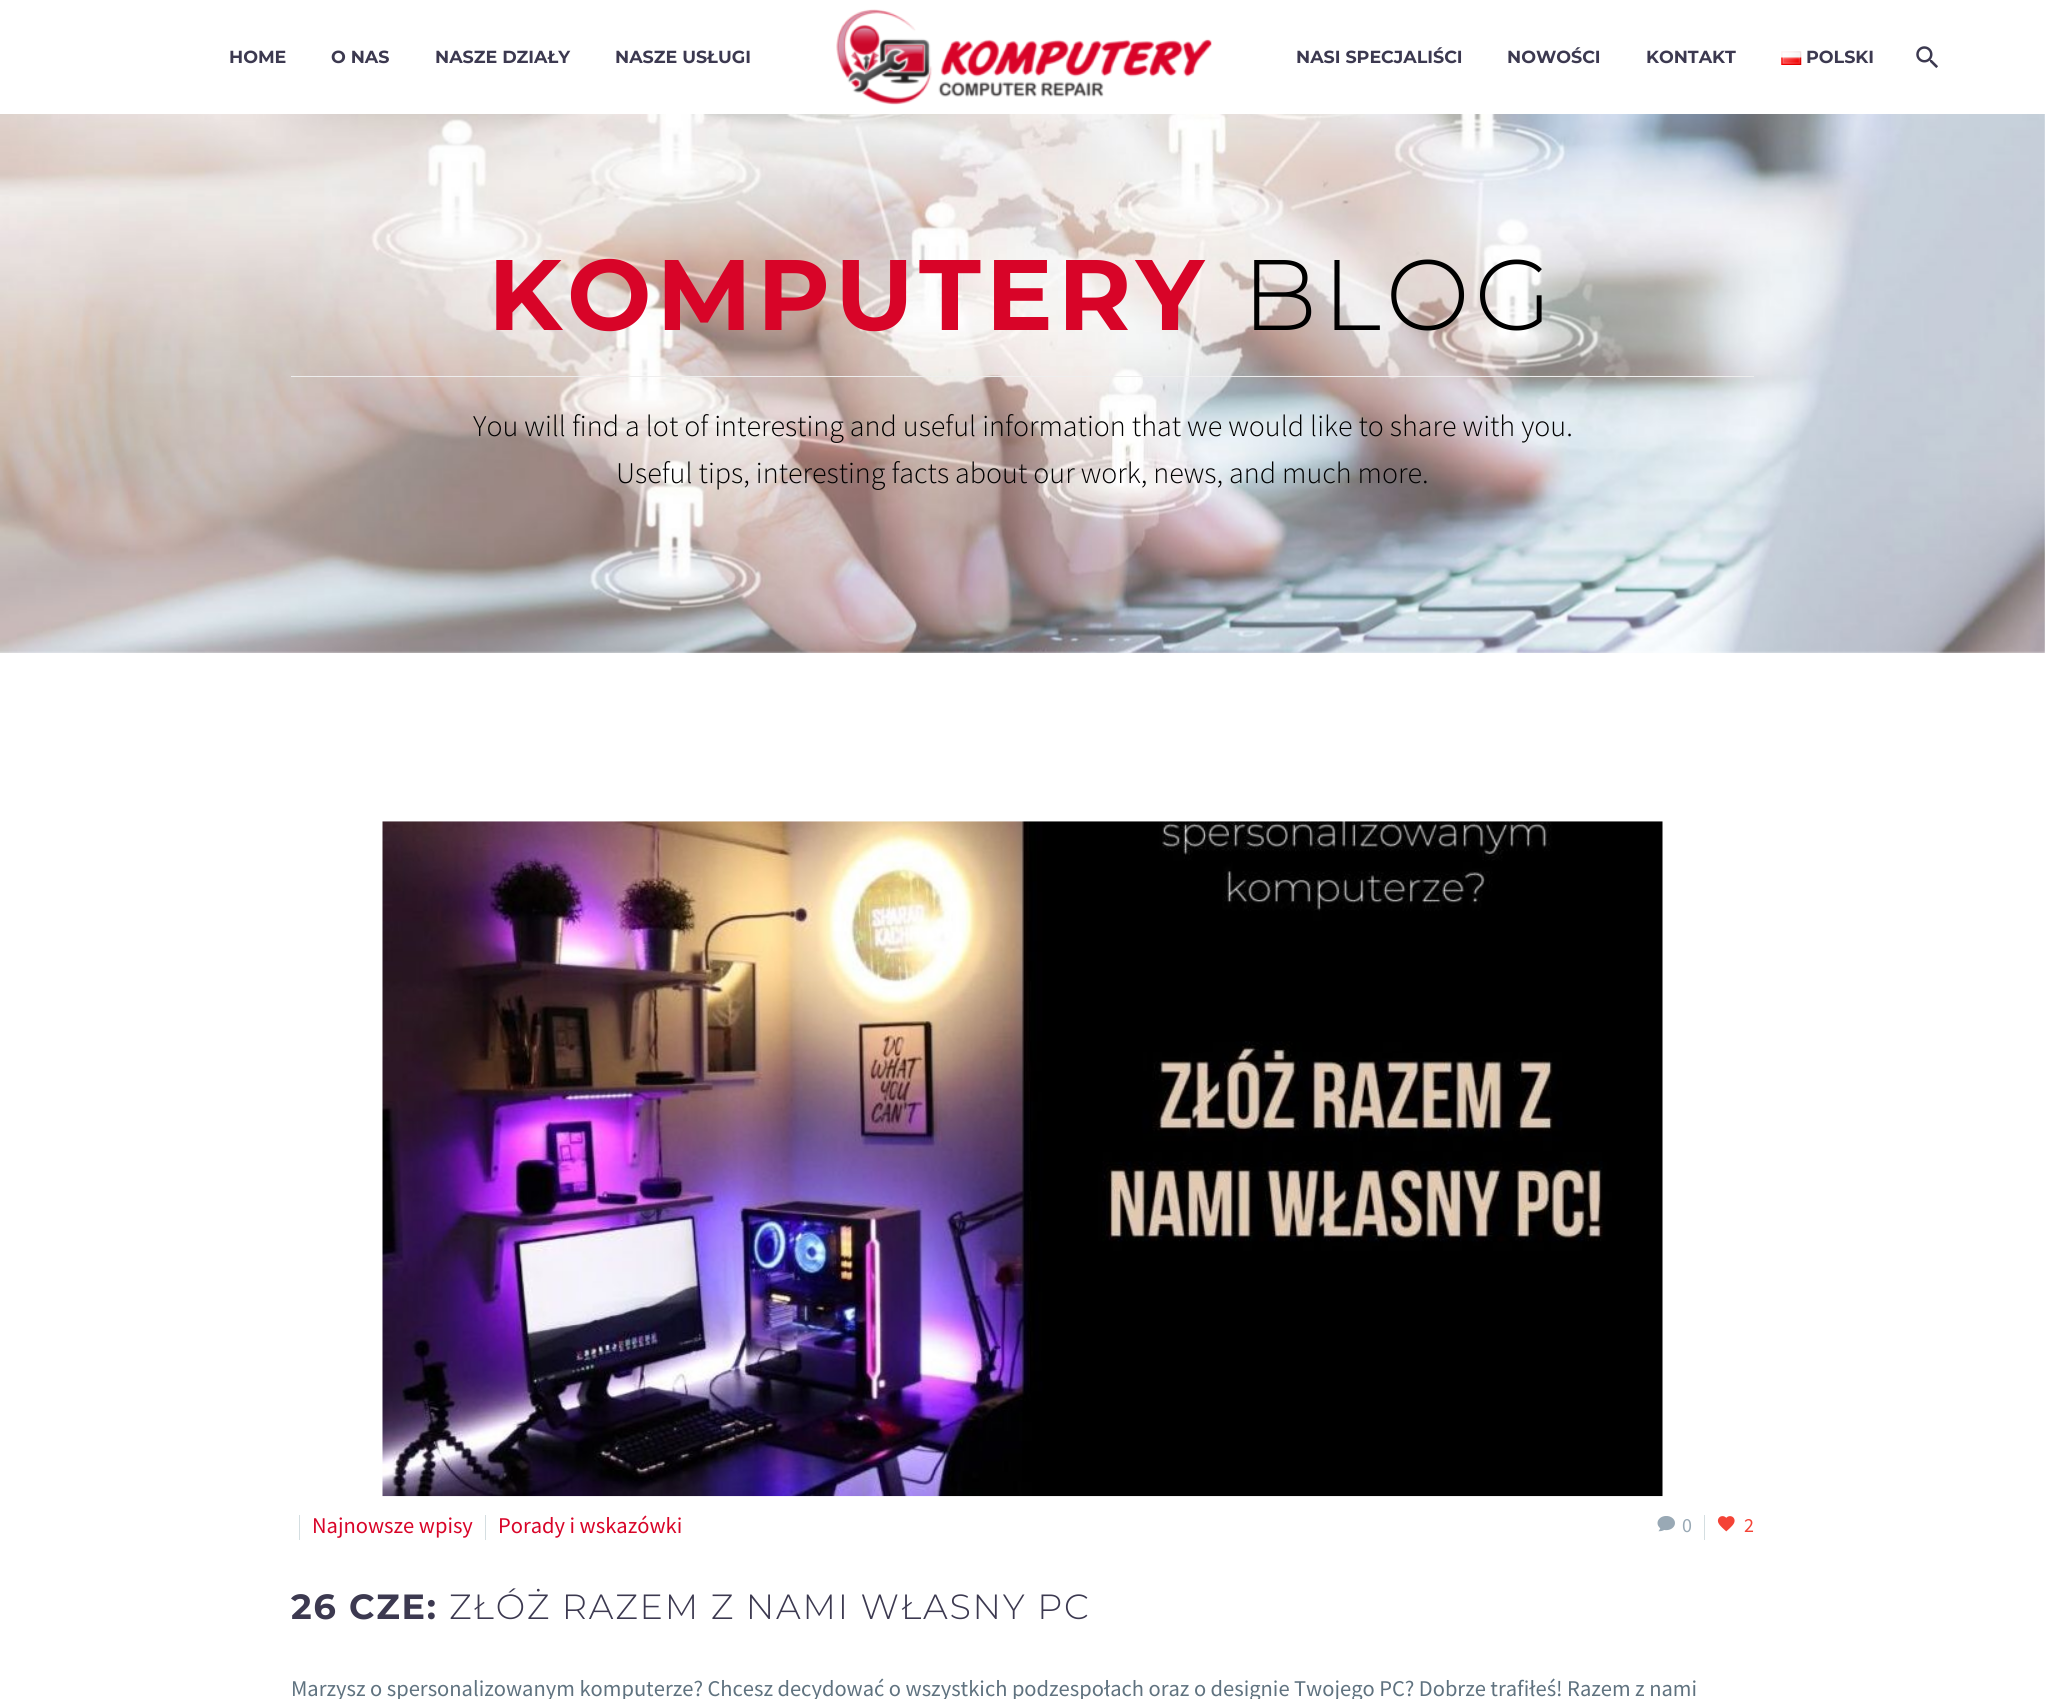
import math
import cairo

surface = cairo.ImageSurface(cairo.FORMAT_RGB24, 2045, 1699)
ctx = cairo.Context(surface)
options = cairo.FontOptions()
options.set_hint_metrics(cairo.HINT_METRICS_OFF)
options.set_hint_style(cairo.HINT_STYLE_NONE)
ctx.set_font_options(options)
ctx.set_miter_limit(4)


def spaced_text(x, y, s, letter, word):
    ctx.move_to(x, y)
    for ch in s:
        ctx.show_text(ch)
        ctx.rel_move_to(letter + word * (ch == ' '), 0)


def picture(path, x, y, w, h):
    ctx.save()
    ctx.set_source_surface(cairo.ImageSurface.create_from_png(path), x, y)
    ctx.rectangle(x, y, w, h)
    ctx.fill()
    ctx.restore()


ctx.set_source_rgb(1, 1, 1)
ctx.paint()
ctx.select_font_face("Montserrat", cairo.FONT_SLANT_NORMAL, cairo.FONT_WEIGHT_BOLD)
ctx.set_font_size(17.5)
ctx.set_source_rgb(0.235, 0.224, 0.314)
ctx.move_to(229, 63)
ctx.show_text("HOME")
ctx.move_to(331, 63)
ctx.show_text("O NAS")
ctx.move_to(435, 63)
ctx.show_text("NASZE DZIAŁY")
ctx.move_to(615, 63)
ctx.show_text("NASZE USŁUGI")
picture("img1.png", 836, 9, 376, 96)
ctx.move_to(1296, 63)
ctx.show_text("NASI SPECJALIŚCI")
ctx.move_to(1507, 63)
ctx.show_text("NOWOŚCI")
ctx.move_to(1646, 63)
ctx.show_text("KONTAKT")
picture("img2.png", 1781, 51, 21, 14)
ctx.move_to(1806, 63)
ctx.show_text("POLSKI")
picture("img3.png", 1916, 46, 22, 22)
picture("img4.png", 0, 114, 2045, 539)
ctx.set_font_size(100)
ctx.set_source_rgb(0.847, 0.016, 0.157)
spaced_text(488, 330, "KOMPUTERY", 5, 0)
ctx.select_font_face("Montserrat Light")
ctx.set_source_rgb(0, 0, 0)
spaced_text(1242, 330, "BLOG", 5, 0)
ctx.set_source_rgb(0.933, 0.933, 0.933)
ctx.rectangle(291, 376, 1463, 1)
ctx.fill()
ctx.select_font_face("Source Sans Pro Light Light")
ctx.set_font_size(30)
ctx.set_source_rgb(0, 0, 0)
ctx.move_to(473, 436)
ctx.show_text("You will find a lot of interesting and useful information that we would like to share with you.")
ctx.move_to(616, 483)
ctx.show_text("Useful tips, interesting facts about our work, news, and much more.")
picture("img5.png", 382, 821, 1281, 676)
ctx.set_source_rgb(0.831, 0.871, 0.882)
ctx.rectangle(299, 1515, 1, 25)
ctx.fill()
ctx.select_font_face("Source Sans Pro")
ctx.set_font_size(22.5)
ctx.set_source_rgb(0.847, 0.016, 0.157)
ctx.move_to(312, 1533)
ctx.show_text("Najnowsze wpisy")
ctx.set_source_rgb(0.831, 0.871, 0.882)
ctx.rectangle(485, 1515, 1, 25)
ctx.fill()
ctx.set_source_rgb(0.847, 0.016, 0.157)
ctx.move_to(498, 1533)
ctx.show_text("Porady i wskazówki")
picture("img6.png", 1657, 1516, 18, 16)
ctx.set_font_size(20)
ctx.set_source_rgb(0.6, 0.663, 0.71)
ctx.move_to(1682, 1532)
ctx.show_text("0")
ctx.set_source_rgb(0.831, 0.871, 0.882)
ctx.rectangle(1704, 1515, 1, 25)
ctx.fill()
picture("img7.png", 1717, 1516, 18, 16)
ctx.set_source_rgb(0.957, 0.263, 0.212)
ctx.move_to(1744, 1532)
ctx.show_text("2")
ctx.select_font_face("Montserrat", cairo.FONT_SLANT_NORMAL, cairo.FONT_WEIGHT_BOLD)
ctx.set_font_size(35)
ctx.set_source_rgb(0.235, 0.224, 0.314)
spaced_text(291, 1619, "26 CZE:", 1.75, 0)
ctx.select_font_face("Montserrat Light")
spaced_text(449, 1619, "ZŁÓŻ RAZEM Z NAMI WŁASNY PC", 1.75, 0)
ctx.select_font_face("Source Sans Pro")
ctx.set_font_size(22.5)
ctx.set_source_rgb(0.373, 0.447, 0.498)
ctx.move_to(291, 1696)
ctx.show_text("Marzysz o spersonalizowanym komputerze? Chcesz decydować o wszystkich podzespołach oraz o designie Twojego PC? Dobrze trafiłeś! Razem z nami")
surface.write_to_png("page.png")
